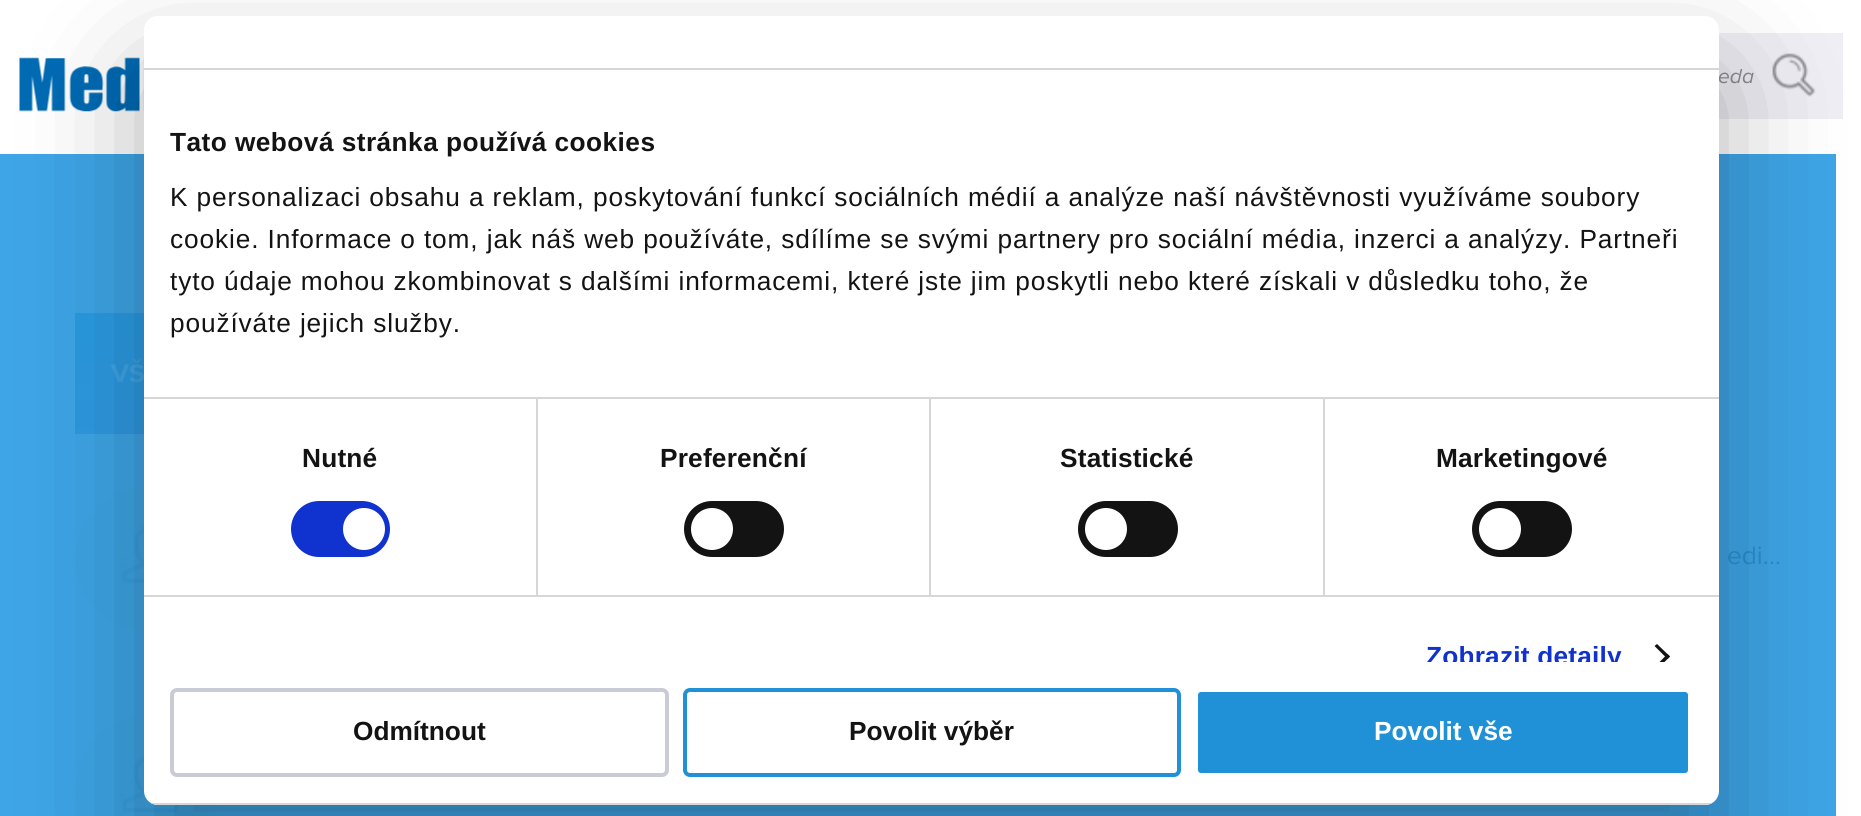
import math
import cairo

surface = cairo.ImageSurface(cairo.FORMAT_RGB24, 1861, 816)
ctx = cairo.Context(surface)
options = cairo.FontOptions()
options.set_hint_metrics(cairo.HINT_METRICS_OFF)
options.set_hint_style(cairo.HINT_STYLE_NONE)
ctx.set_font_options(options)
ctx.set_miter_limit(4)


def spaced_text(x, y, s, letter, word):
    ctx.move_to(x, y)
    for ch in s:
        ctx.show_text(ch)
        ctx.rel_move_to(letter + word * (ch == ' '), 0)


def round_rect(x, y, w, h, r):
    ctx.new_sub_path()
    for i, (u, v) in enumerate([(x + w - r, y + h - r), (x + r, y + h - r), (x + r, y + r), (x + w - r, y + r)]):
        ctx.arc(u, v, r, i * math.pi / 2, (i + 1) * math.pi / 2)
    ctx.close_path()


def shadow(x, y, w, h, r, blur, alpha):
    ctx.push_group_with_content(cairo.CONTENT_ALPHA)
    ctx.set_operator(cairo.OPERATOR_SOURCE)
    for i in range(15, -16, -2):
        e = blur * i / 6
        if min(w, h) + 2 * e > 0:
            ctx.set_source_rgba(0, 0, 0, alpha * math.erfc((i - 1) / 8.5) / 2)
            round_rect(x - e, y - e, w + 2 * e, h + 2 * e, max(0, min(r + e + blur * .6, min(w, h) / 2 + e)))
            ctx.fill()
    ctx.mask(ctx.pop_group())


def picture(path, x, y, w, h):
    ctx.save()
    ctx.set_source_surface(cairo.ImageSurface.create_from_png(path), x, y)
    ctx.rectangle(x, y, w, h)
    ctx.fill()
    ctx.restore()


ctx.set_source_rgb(1, 1, 1)
ctx.paint()
ctx.set_source_rgb(0.243, 0.647, 0.902)
ctx.rectangle(0, 154, 1836, 662)
ctx.fill()
picture("img1.png", 19, 57, 125, 55)
ctx.set_source_rgb(0.933, 0.933, 0.957)
ctx.rectangle(1719, 33, 124, 86)
ctx.fill()
ctx.select_font_face("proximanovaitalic", cairo.FONT_SLANT_ITALIC)
ctx.set_font_size(21)
ctx.set_source_rgb(0.545, 0.545, 0.569)
ctx.move_to(1718, 83)
ctx.show_text("eda")
picture("img2.png", 1772, 53, 44, 44)
gradient = cairo.LinearGradient(923, 253, 939, 494)
gradient.add_color_stop_rgba(0, 0.161, 0.608, 0.89, 1)
gradient.add_color_stop_rgba(1, 0.204, 0.592, 0.882, 1)
ctx.set_source(gradient)
ctx.rectangle(75, 313, 69, 121)
ctx.fill()
ctx.select_font_face("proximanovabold", cairo.FONT_SLANT_NORMAL, cairo.FONT_WEIGHT_BOLD)
ctx.set_font_size(26.25)
ctx.set_source_rgb(0.243, 0.647, 0.902)
ctx.move_to(111, 382)
ctx.show_text("VŠ")
picture("img3.png", 1719, 366, 1, 1)
picture("img4.png", 75, 486, 69, 145)
ctx.select_font_face("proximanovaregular")
ctx.set_source_rgb(0.161, 0.565, 0.82)
ctx.move_to(1727, 564)
ctx.show_text("edi…")
picture("img5.png", 75, 716, 144, 100)
ctx.set_source_rgb(0, 0, 0)
shadow(144, 72, 1575, 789, 14, 59.5, 0.3)
ctx.set_source_rgb(1, 1, 1)
round_rect(144, 16, 1575, 789, 14)
ctx.fill()
ctx.set_source_rgb(0.839, 0.839, 0.839)
ctx.rectangle(144, 68, 1575, 2)
ctx.fill()
ctx.rectangle(144, 397, 1575, 2)
ctx.fill()
ctx.select_font_face("Liberation Sans", cairo.FONT_SLANT_NORMAL, cairo.FONT_WEIGHT_BOLD)
ctx.set_source_rgb(0.078, 0.078, 0.078)
spaced_text(170, 151, "Tato webová stránka používá cookies", 0.45, 0)
ctx.select_font_face("Liberation Sans")
spaced_text(170, 206, "K personalizaci obsahu a reklam, poskytování funkcí sociálních médií a analýze naší návštěvnosti využíváme soubory", 0.88, 0)
spaced_text(170, 248, "cookie. Informace o tom, jak náš web používáte, sdílíme se svými partnery pro sociální média, inzerci a analýzy. Partneři", 0.88, 0)
spaced_text(170, 290, "tyto údaje mohou zkombinovat s dalšími informacemi, které jste jim poskytli nebo které získali v důsledku toho, že", 0.88, 0)
spaced_text(170, 332, "používáte jejich služby.", 0.88, 0)
ctx.set_source_rgb(0.839, 0.839, 0.839)
ctx.rectangle(144, 595, 1575, 2)
ctx.fill()
ctx.rectangle(536, 399, 2, 196)
ctx.fill()
ctx.select_font_face("Liberation Sans", cairo.FONT_SLANT_NORMAL, cairo.FONT_WEIGHT_BOLD)
ctx.set_source_rgb(0.078, 0.078, 0.078)
spaced_text(302, 467, "Nutné", 0.2, 0)
ctx.set_source_rgb(0.063, 0.196, 0.812)
round_rect(291, 501, 99, 56, 28)
ctx.fill()
ctx.set_source_rgb(1, 1, 1)
ctx.arc(364, 529, 21, 0, 2 * math.pi)
ctx.fill()
ctx.set_source_rgb(0.839, 0.839, 0.839)
ctx.rectangle(929, 399, 2, 196)
ctx.fill()
ctx.set_source_rgb(0.078, 0.078, 0.078)
spaced_text(660, 467, "Preferenční", 0.2, 0)
round_rect(684, 501, 100, 56, 28)
ctx.fill()
ctx.set_source_rgb(1, 1, 1)
ctx.arc(712, 529, 21, 0, 2 * math.pi)
ctx.fill()
ctx.set_source_rgb(0.839, 0.839, 0.839)
ctx.rectangle(1323, 399, 2, 196)
ctx.fill()
ctx.set_source_rgb(0.078, 0.078, 0.078)
spaced_text(1060, 467, "Statistické", 0.2, 0)
round_rect(1078, 501, 100, 56, 28)
ctx.fill()
ctx.set_source_rgb(1, 1, 1)
ctx.arc(1106, 529, 21, 0, 2 * math.pi)
ctx.fill()
ctx.set_source_rgb(0.078, 0.078, 0.078)
spaced_text(1436, 467, "Marketingové", 0.2, 0)
round_rect(1472, 501, 100, 56, 28)
ctx.fill()
ctx.set_source_rgb(1, 1, 1)
ctx.arc(1500, 529, 21, 0, 2 * math.pi)
ctx.fill()
ctx.save()
ctx.rectangle(144, 70, 1575, 592)
ctx.clip()
ctx.set_source_rgb(0.063, 0.196, 0.812)
spaced_text(1426, 665, "Zobrazit detaily", 0.2, 0)
ctx.restore()
ctx.set_source_rgb(0.078, 0.078, 0.078)
ctx.new_path()
ctx.move_to(1657, 644)
ctx.line_to(1670, 656.5)
ctx.line_to(1667.5, 659)
ctx.line_to(1654.5, 646)
ctx.close_path()
ctx.fill()
ctx.save()
ctx.rectangle(144, 70, 1575, 592)
ctx.clip()
ctx.new_path()
ctx.move_to(1667.5, 654)
ctx.line_to(1670, 656.5)
ctx.line_to(1657, 669.5)
ctx.line_to(1654.5, 667)
ctx.close_path()
ctx.fill()
ctx.restore()
ctx.save()
round_rect(144, 16, 1575, 789, 14)
ctx.clip()
ctx.set_source_rgb(0.839, 0.839, 0.839)
ctx.rectangle(144, 803, 1575, 2)
ctx.fill()
ctx.restore()
round_rect(172, 690, 495, 85, 5)
ctx.set_source_rgb(0.788, 0.796, 0.839)
ctx.set_line_width(4)
ctx.stroke()
ctx.set_source_rgb(0.078, 0.078, 0.078)
ctx.move_to(353, 740)
ctx.show_text("Odmítnout")
round_rect(685, 690, 494, 85, 5)
ctx.set_source_rgb(0.125, 0.569, 0.839)
ctx.stroke()
ctx.set_source_rgb(0.078, 0.078, 0.078)
ctx.move_to(849, 740)
ctx.show_text("Povolit výběr")
ctx.set_source_rgb(0.125, 0.569, 0.839)
round_rect(1196, 690, 494, 85, 5)
ctx.fill_preserve()
ctx.set_source_rgb(1, 1, 1)
ctx.stroke()
ctx.move_to(1374, 740)
ctx.show_text("Povolit vše")
surface.write_to_png("page.png")
